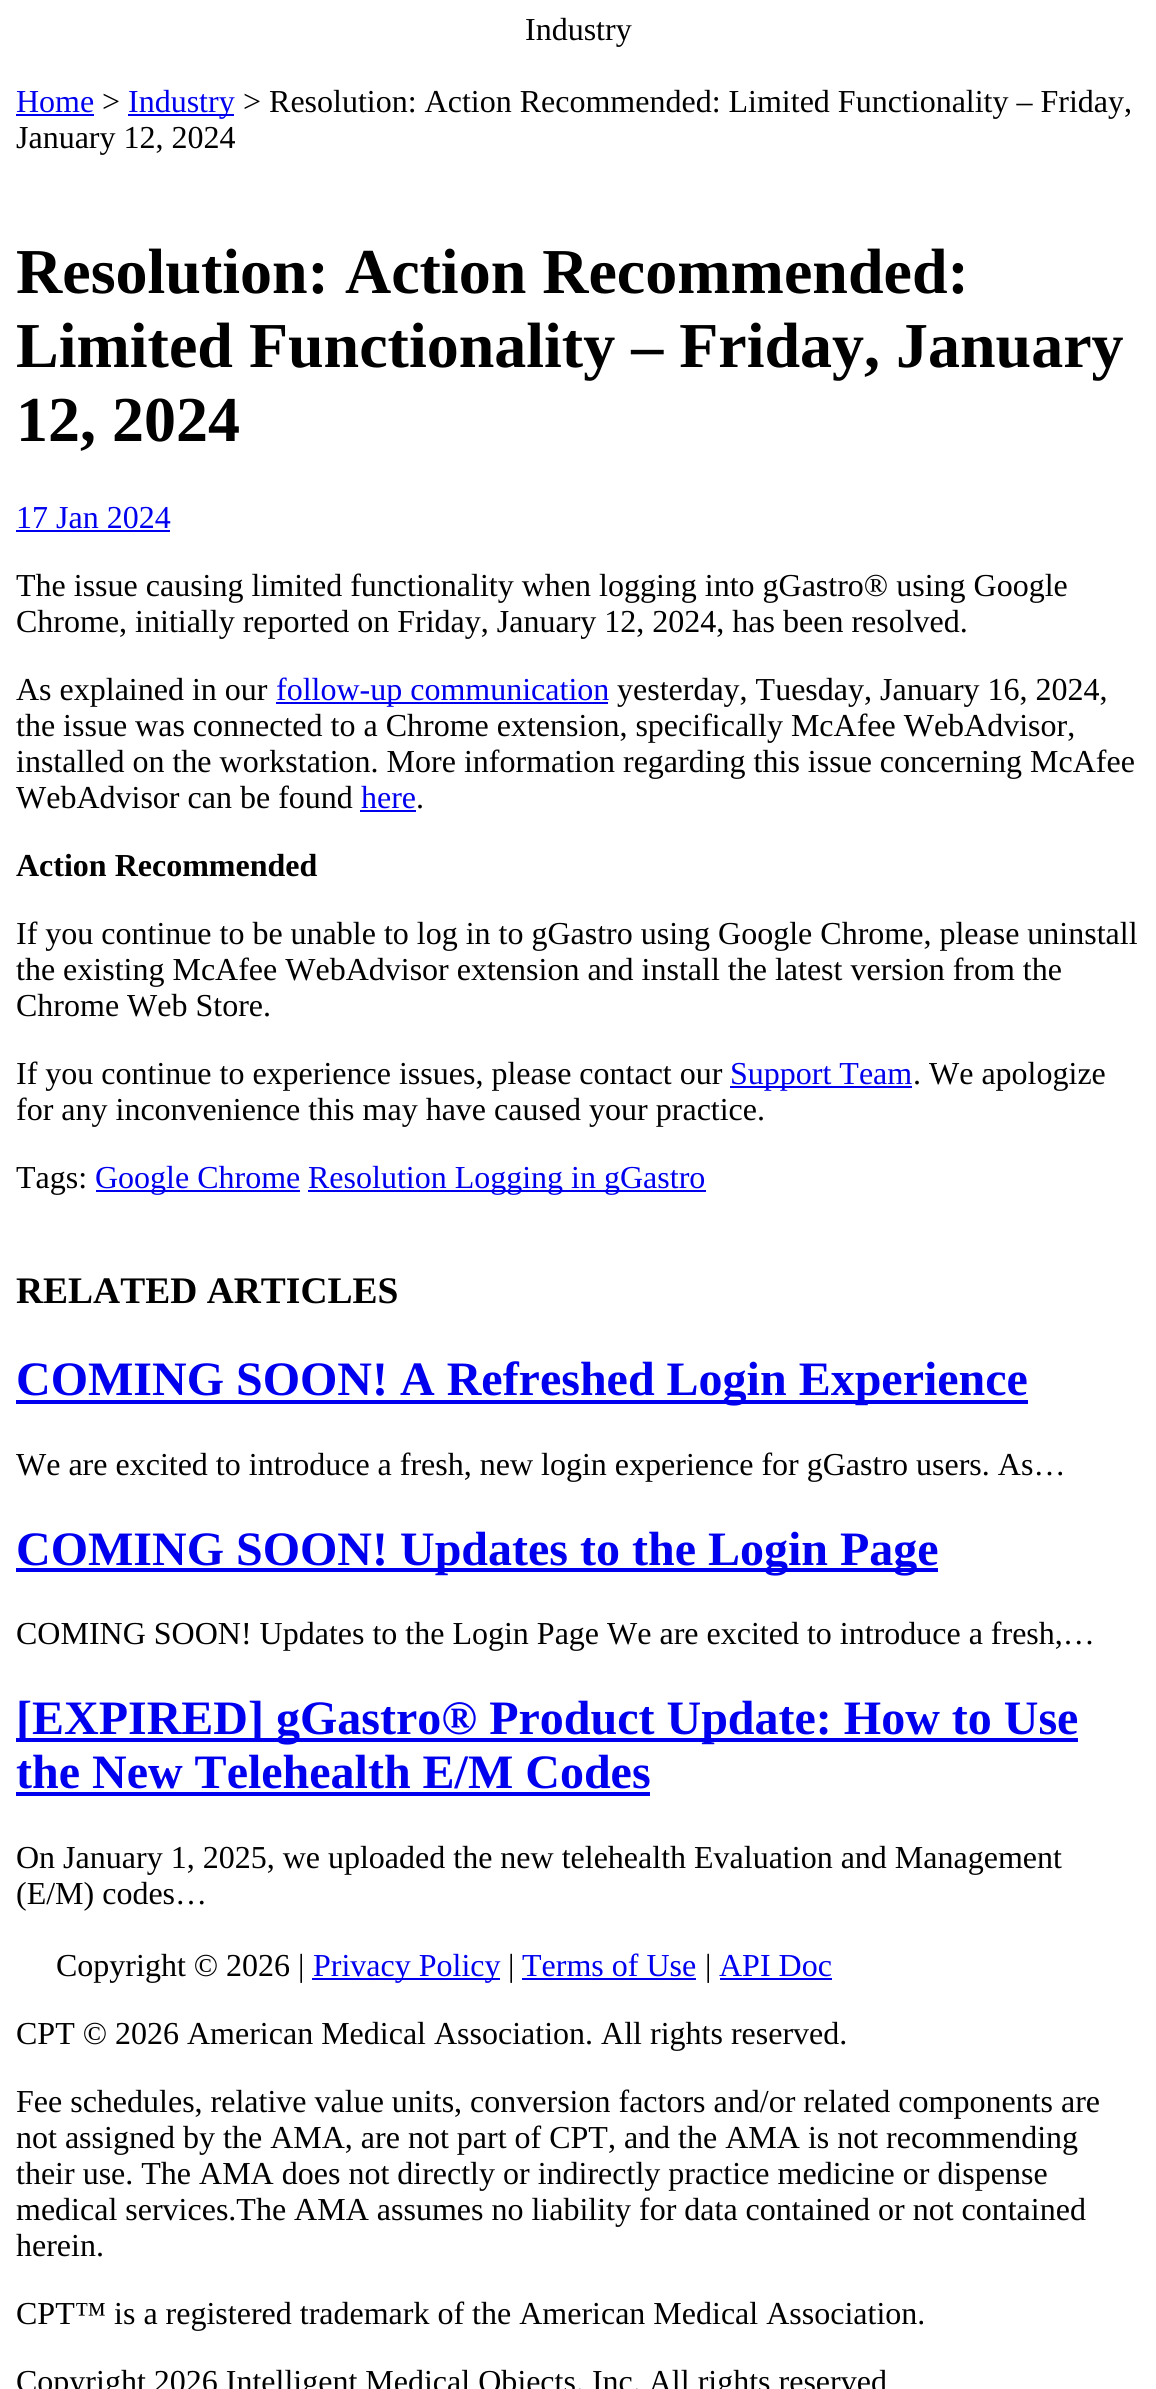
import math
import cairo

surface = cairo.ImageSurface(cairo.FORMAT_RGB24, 1156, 2389)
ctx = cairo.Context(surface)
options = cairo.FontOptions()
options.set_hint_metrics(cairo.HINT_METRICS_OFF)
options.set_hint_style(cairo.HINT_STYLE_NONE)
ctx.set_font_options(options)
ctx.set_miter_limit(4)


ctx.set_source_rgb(1, 1, 1)
ctx.paint()
ctx.select_font_face("Liberation Serif")
ctx.set_font_size(32)
ctx.set_source_rgb(0, 0, 0)
ctx.move_to(525, 40)
ctx.show_text("Industry")
ctx.set_source_rgb(0, 0, 0.933)
ctx.move_to(16, 112)
ctx.show_text("Home")
ctx.rectangle(16, 114, 78, 2)
ctx.fill()
ctx.set_source_rgb(0, 0, 0)
ctx.move_to(102, 112)
ctx.show_text(">")
ctx.set_source_rgb(0, 0, 0.933)
ctx.rectangle(128, 114, 106, 2)
ctx.fill()
ctx.move_to(128, 112)
ctx.show_text("Industry")
ctx.set_source_rgb(0, 0, 0)
ctx.move_to(243, 112)
ctx.show_text("> Resolution: Action Recommended: Limited Functionality – Friday,")
ctx.move_to(16, 148)
ctx.show_text("January 12, 2024")
ctx.select_font_face("Liberation Serif", cairo.FONT_SLANT_NORMAL, cairo.FONT_WEIGHT_BOLD)
ctx.set_font_size(64)
ctx.move_to(16, 293)
ctx.show_text("Resolution: Action Recommended:")
ctx.move_to(16, 367)
ctx.show_text("Limited Functionality – Friday, January")
ctx.move_to(16, 441)
ctx.show_text("12, 2024")
ctx.select_font_face("Liberation Serif")
ctx.set_font_size(32)
ctx.set_source_rgb(0, 0, 0.933)
ctx.move_to(16, 528)
ctx.show_text("17 Jan 2024")
ctx.rectangle(16, 530, 154, 2)
ctx.fill()
ctx.set_source_rgb(0, 0, 0)
ctx.move_to(16, 596)
ctx.show_text("The issue causing limited functionality when logging into gGastro® using Google")
ctx.move_to(16, 632)
ctx.show_text("Chrome, initially reported on Friday, January 12, 2024, has been resolved.")
ctx.move_to(16, 700)
ctx.show_text("As explained in our")
ctx.set_source_rgb(0, 0, 0.933)
ctx.rectangle(276, 702, 332, 2)
ctx.fill()
ctx.move_to(276, 700)
ctx.show_text("follow-up communication")
ctx.set_source_rgb(0, 0, 0)
ctx.move_to(617, 700)
ctx.show_text("yesterday, Tuesday, January 16, 2024,")
ctx.move_to(16, 736)
ctx.show_text("the issue was connected to a Chrome extension, specifically McAfee WebAdvisor,")
ctx.move_to(16, 772)
ctx.show_text("installed on the workstation. More information regarding this issue concerning McAfee")
ctx.move_to(16, 808)
ctx.show_text("WebAdvisor can be found")
ctx.set_source_rgb(0, 0, 0.933)
ctx.move_to(361, 808)
ctx.show_text("here")
ctx.rectangle(360, 810, 56, 2)
ctx.fill()
ctx.set_source_rgb(0, 0, 0)
ctx.move_to(416, 808)
ctx.show_text(".")
ctx.select_font_face("Liberation Serif", cairo.FONT_SLANT_NORMAL, cairo.FONT_WEIGHT_BOLD)
ctx.move_to(16, 876)
ctx.show_text("Action Recommended")
ctx.select_font_face("Liberation Serif")
ctx.move_to(16, 944)
ctx.show_text("If you continue to be unable to log in to gGastro using Google Chrome, please uninstall")
ctx.move_to(16, 980)
ctx.show_text("the existing McAfee WebAdvisor extension and install the latest version from the")
ctx.move_to(16, 1016)
ctx.show_text("Chrome Web Store.")
ctx.move_to(16, 1084)
ctx.show_text("If you continue to experience issues, please contact our")
ctx.set_source_rgb(0, 0, 0.933)
ctx.rectangle(730, 1086, 182, 2)
ctx.fill()
ctx.move_to(730, 1084)
ctx.show_text("Support Team")
ctx.set_source_rgb(0, 0, 0)
ctx.move_to(913, 1084)
ctx.show_text(". We apologize")
ctx.move_to(16, 1120)
ctx.show_text("for any inconvenience this may have caused your practice.")
ctx.move_to(16, 1188)
ctx.show_text("Tags:")
ctx.set_source_rgb(0, 0, 0.933)
ctx.rectangle(96, 1190, 204, 2)
ctx.fill()
ctx.move_to(95, 1188)
ctx.show_text("Google Chrome")
ctx.rectangle(308, 1190, 398, 2)
ctx.fill()
ctx.move_to(308, 1188)
ctx.show_text("Resolution Logging in gGastro")
ctx.select_font_face("Liberation Serif", cairo.FONT_SLANT_NORMAL, cairo.FONT_WEIGHT_BOLD)
ctx.set_font_size(37.5)
ctx.set_source_rgb(0, 0, 0)
ctx.move_to(16, 1303)
ctx.show_text("RELATED ARTICLES")
ctx.set_source_rgb(0, 0, 0.933)
ctx.rectangle(16, 1400, 1012, 4)
ctx.fill()
ctx.set_font_size(48)
ctx.move_to(16, 1395)
ctx.show_text("COMING SOON! A Refreshed Login Experience")
ctx.select_font_face("Liberation Serif")
ctx.set_font_size(32)
ctx.set_source_rgb(0, 0, 0)
ctx.move_to(16, 1475)
ctx.show_text("We are excited to introduce a fresh, new login experience for gGastro users. As…")
ctx.set_source_rgb(0, 0, 0.933)
ctx.rectangle(16, 1568, 922, 4)
ctx.fill()
ctx.select_font_face("Liberation Serif", cairo.FONT_SLANT_NORMAL, cairo.FONT_WEIGHT_BOLD)
ctx.set_font_size(48)
ctx.move_to(16, 1565)
ctx.show_text("COMING SOON! Updates to the Login Page")
ctx.select_font_face("Liberation Serif")
ctx.set_font_size(32)
ctx.set_source_rgb(0, 0, 0)
ctx.move_to(16, 1644)
ctx.show_text("COMING SOON! Updates to the Login Page We are excited to introduce a fresh,…")
ctx.set_source_rgb(0, 0, 0.933)
ctx.rectangle(16, 1738, 1062, 4)
ctx.fill()
ctx.select_font_face("Liberation Serif", cairo.FONT_SLANT_NORMAL, cairo.FONT_WEIGHT_BOLD)
ctx.set_font_size(48)
ctx.move_to(16, 1734)
ctx.show_text("[EXPIRED] gGastro® Product Update: How to Use")
ctx.move_to(16, 1788)
ctx.show_text("the New Telehealth E/M Codes")
ctx.rectangle(16, 1792, 634, 4)
ctx.fill()
ctx.select_font_face("Liberation Serif")
ctx.set_font_size(32)
ctx.set_source_rgb(0, 0, 0)
ctx.move_to(16, 1868)
ctx.show_text("On January 1, 2025, we uploaded the new telehealth Evaluation and Management")
ctx.move_to(16, 1904)
ctx.show_text("(E/M) codes…")
ctx.move_to(56, 1976)
ctx.show_text("Copyright © 2026 |")
ctx.set_source_rgb(0, 0, 0.933)
ctx.rectangle(312, 1978, 188, 2)
ctx.fill()
ctx.move_to(313, 1976)
ctx.show_text("Privacy Policy")
ctx.set_source_rgb(0, 0, 0)
ctx.move_to(508, 1976)
ctx.show_text("|")
ctx.set_source_rgb(0, 0, 0.933)
ctx.move_to(522, 1976)
ctx.show_text("Terms of Use")
ctx.rectangle(522, 1978, 174, 2)
ctx.fill()
ctx.set_source_rgb(0, 0, 0)
ctx.move_to(705, 1976)
ctx.show_text("|")
ctx.set_source_rgb(0, 0, 0.933)
ctx.move_to(719, 1976)
ctx.show_text("API Doc")
ctx.rectangle(720, 1978, 112, 2)
ctx.fill()
ctx.set_source_rgb(0, 0, 0)
ctx.move_to(16, 2044)
ctx.show_text("CPT © 2026 American Medical Association. All rights reserved.")
ctx.move_to(16, 2112)
ctx.show_text("Fee schedules, relative value units, conversion factors and/or related components are")
ctx.move_to(16, 2148)
ctx.show_text("not assigned by the AMA, are not part of CPT, and the AMA is not recommending")
ctx.move_to(16, 2184)
ctx.show_text("their use. The AMA does not directly or indirectly practice medicine or dispense")
ctx.move_to(16, 2220)
ctx.show_text("medical services.The AMA assumes no liability for data contained or not contained")
ctx.move_to(16, 2256)
ctx.show_text("herein.")
ctx.move_to(16, 2324)
ctx.show_text("CPT™ is a registered trademark of the American Medical Association.")
ctx.move_to(16, 2392)
ctx.show_text("Copyright 2026 Intelligent Medical Objects, Inc. All rights reserved")
surface.write_to_png("page.png")
